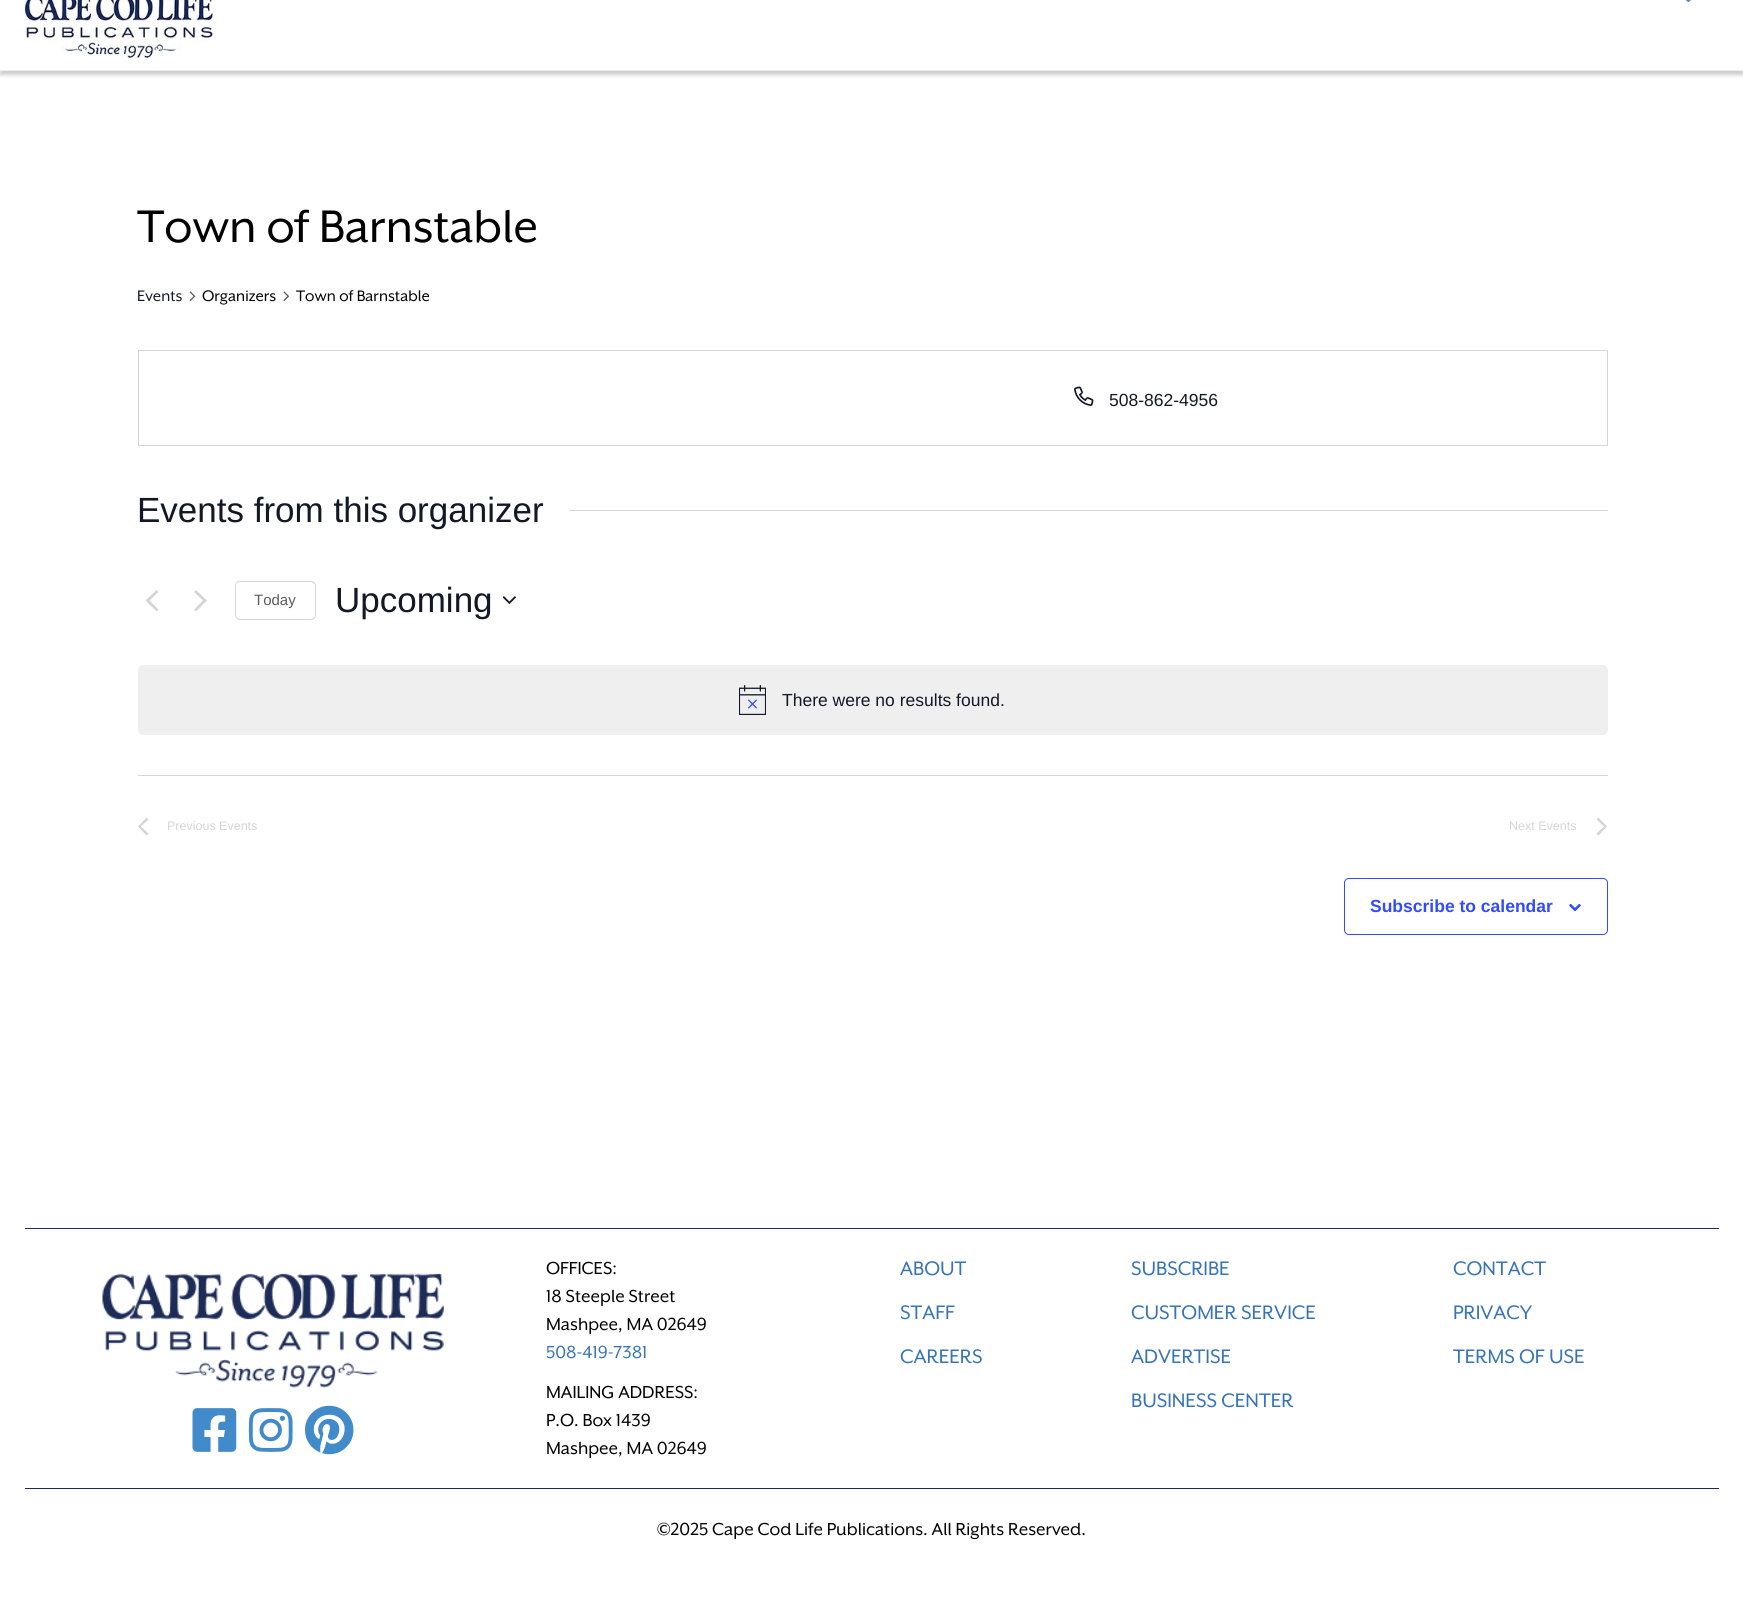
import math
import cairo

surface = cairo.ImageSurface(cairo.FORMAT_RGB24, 1743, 1598)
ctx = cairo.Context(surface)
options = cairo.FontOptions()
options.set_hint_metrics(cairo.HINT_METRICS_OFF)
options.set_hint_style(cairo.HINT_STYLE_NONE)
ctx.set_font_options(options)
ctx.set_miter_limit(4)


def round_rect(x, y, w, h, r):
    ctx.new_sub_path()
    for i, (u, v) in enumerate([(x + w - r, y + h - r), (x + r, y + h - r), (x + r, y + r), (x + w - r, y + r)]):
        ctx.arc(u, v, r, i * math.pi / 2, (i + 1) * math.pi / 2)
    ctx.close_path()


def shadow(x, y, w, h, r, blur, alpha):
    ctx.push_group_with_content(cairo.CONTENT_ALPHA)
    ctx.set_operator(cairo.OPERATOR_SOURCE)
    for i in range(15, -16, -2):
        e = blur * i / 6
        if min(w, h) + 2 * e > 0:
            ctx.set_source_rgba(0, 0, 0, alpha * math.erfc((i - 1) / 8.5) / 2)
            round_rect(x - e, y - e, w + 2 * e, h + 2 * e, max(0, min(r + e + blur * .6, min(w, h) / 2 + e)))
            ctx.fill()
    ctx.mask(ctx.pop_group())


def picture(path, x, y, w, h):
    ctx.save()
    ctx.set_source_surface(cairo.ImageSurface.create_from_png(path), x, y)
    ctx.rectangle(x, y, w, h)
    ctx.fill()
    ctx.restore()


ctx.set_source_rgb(1, 1, 1)
ctx.paint()
ctx.save()
ctx.rectangle(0, 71, 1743, 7)
ctx.clip()
ctx.set_source_rgb(0, 0, 0)
shadow(0, -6, 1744, 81, 0, 2, 0.2)
ctx.restore()
ctx.set_source_rgb(0.937, 0.937, 0.937)
ctx.rectangle(0, 70, 1743, 1)
ctx.fill()
picture("img1.png", 25, 0, 188, 58)
picture("img2.png", 1686, 0, 5, 2)
ctx.select_font_face("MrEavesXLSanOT")
ctx.set_font_size(52.5)
ctx.set_source_rgb(0, 0, 0)
ctx.move_to(137, 242)
ctx.show_text("Town of Barnstable")
ctx.set_font_size(17.5)
ctx.set_source_rgb(0.078, 0.094, 0.153)
ctx.move_to(137, 301)
ctx.show_text("Events")
picture("img3.png", 189, 291, 7, 10)
ctx.set_source_rgb(0, 0, 0)
ctx.move_to(202, 301)
ctx.show_text("Organizers")
picture("img4.png", 283, 291, 7, 10)
ctx.move_to(296, 301)
ctx.show_text("Town of Barnstable")
ctx.rectangle(138.5, 350.5, 1469, 95)
ctx.set_source_rgb(0.835, 0.835, 0.835)
ctx.set_line_width(1)
ctx.stroke()
picture("img5.png", 1074, 386, 20, 20)
ctx.select_font_face("Liberation Sans")
ctx.set_source_rgb(0.078, 0.094, 0.153)
ctx.move_to(1109, 406)
ctx.show_text("508-862-4956")
ctx.set_font_size(35)
ctx.move_to(137, 522)
ctx.show_text("Events from this organizer")
ctx.set_source_rgb(0.835, 0.835, 0.835)
ctx.rectangle(569, 510, 1039, 1)
ctx.fill()
ctx.new_path()
ctx.move_to(158.5, 609.5)
ctx.line_to(156.5, 611.5)
ctx.line_to(145.5, 600.5)
ctx.line_to(156.5, 590)
ctx.line_to(158.5, 592)
ctx.line_to(149.5, 600.5)
ctx.close_path()
ctx.move_to(194, 592)
ctx.line_to(196, 590)
ctx.line_to(207, 600.5)
ctx.line_to(196, 611.5)
ctx.line_to(194, 609.5)
ctx.line_to(203, 600.5)
ctx.close_path()
ctx.fill()
round_rect(235.5, 581.5, 80, 38, 4.5)
ctx.stroke()
ctx.set_font_size(15)
ctx.set_source_rgb(0.365, 0.365, 0.365)
ctx.move_to(254, 605)
ctx.show_text("Today")
ctx.set_font_size(35)
ctx.set_source_rgb(0.078, 0.094, 0.153)
ctx.move_to(335, 612)
ctx.show_text("Upcoming")
picture("img6.png", 503, 596, 13, 8)
ctx.set_source_rgb(0.937, 0.937, 0.941)
round_rect(138, 665, 1470, 70, 5)
ctx.fill()
picture("img7.png", 739, 685, 27, 30)
ctx.set_font_size(17.5)
ctx.set_source_rgb(0.078, 0.094, 0.153)
ctx.move_to(782, 706)
ctx.show_text("There were no results found.")
ctx.set_source_rgb(0.835, 0.835, 0.835)
ctx.rectangle(138, 775, 1470, 1)
ctx.fill()
ctx.new_path()
ctx.move_to(148.5, 833.5)
ctx.line_to(146.5, 835.5)
ctx.line_to(138, 826.5)
ctx.line_to(146.5, 817.5)
ctx.line_to(148.5, 819.5)
ctx.line_to(141, 826.5)
ctx.close_path()
ctx.fill()
ctx.set_font_size(12.5)
ctx.move_to(167, 830)
ctx.show_text("Previous Events")
ctx.move_to(1509, 830)
ctx.show_text("Next Events")
ctx.new_path()
ctx.move_to(1596.5, 819.5)
ctx.line_to(1598.5, 817.5)
ctx.line_to(1607, 826.5)
ctx.line_to(1598.5, 835.5)
ctx.line_to(1596.5, 833.5)
ctx.line_to(1604, 826.5)
ctx.close_path()
ctx.fill()
round_rect(1344.5, 878.5, 263, 56, 4.5)
ctx.set_source_rgb(0.2, 0.29, 1)
ctx.stroke()
ctx.select_font_face("Liberation Sans", cairo.FONT_SLANT_NORMAL, cairo.FONT_WEIGHT_BOLD)
ctx.set_font_size(17.5)
ctx.move_to(1370, 912)
ctx.show_text("Subscribe to calendar")
picture("img8.png", 1569, 904, 12, 7)
ctx.set_source_rgb(0.114, 0.173, 0.349)
ctx.rectangle(25, 1228, 1694, 1)
ctx.fill()
picture("img9.png", 102, 1273, 342, 115)
picture("img10.png", 192, 1408, 45, 44)
picture("img11.png", 248, 1408, 45, 44)
picture("img12.png", 305, 1405, 49, 50)
ctx.select_font_face("MrEavesXLSanOT")
ctx.set_font_size(20)
ctx.set_source_rgb(0, 0, 0)
ctx.move_to(546, 1274)
ctx.show_text("OFFICES:")
ctx.move_to(546, 1302)
ctx.show_text("18 Steeple Street")
ctx.move_to(546, 1330)
ctx.show_text("Mashpee, MA 02649")
ctx.set_source_rgb(0.212, 0.451, 0.718)
ctx.move_to(546, 1358)
ctx.show_text("508-419-7381")
ctx.set_source_rgb(0, 0, 0)
ctx.move_to(546, 1398)
ctx.show_text("MAILING ADDRESS:")
ctx.move_to(546, 1426)
ctx.show_text("P.O. Box 1439")
ctx.move_to(546, 1454)
ctx.show_text("Mashpee, MA 02649")
ctx.set_font_size(22.5)
ctx.set_source_rgb(0.212, 0.451, 0.718)
ctx.move_to(900, 1275)
ctx.show_text("ABOUT")
ctx.move_to(900, 1319)
ctx.show_text("STAFF")
ctx.move_to(900, 1363)
ctx.show_text("CAREERS")
ctx.move_to(1131, 1275)
ctx.show_text("SUBSCRIBE")
ctx.move_to(1131, 1319)
ctx.show_text("CUSTOMER SERVICE")
ctx.move_to(1131, 1363)
ctx.show_text("ADVERTISE")
ctx.move_to(1131, 1407)
ctx.show_text("BUSINESS CENTER")
ctx.move_to(1453, 1275)
ctx.show_text("CONTACT")
ctx.move_to(1453, 1319)
ctx.show_text("PRIVACY")
ctx.move_to(1453, 1363)
ctx.show_text("TERMS OF USE")
ctx.set_source_rgb(0.114, 0.173, 0.349)
ctx.rectangle(25, 1488, 1694, 1)
ctx.fill()
ctx.set_font_size(20)
ctx.set_source_rgb(0, 0, 0)
ctx.move_to(657, 1535)
ctx.show_text("©2025 Cape Cod Life Publications. All Rights Reserved.")
surface.write_to_png("page.png")
